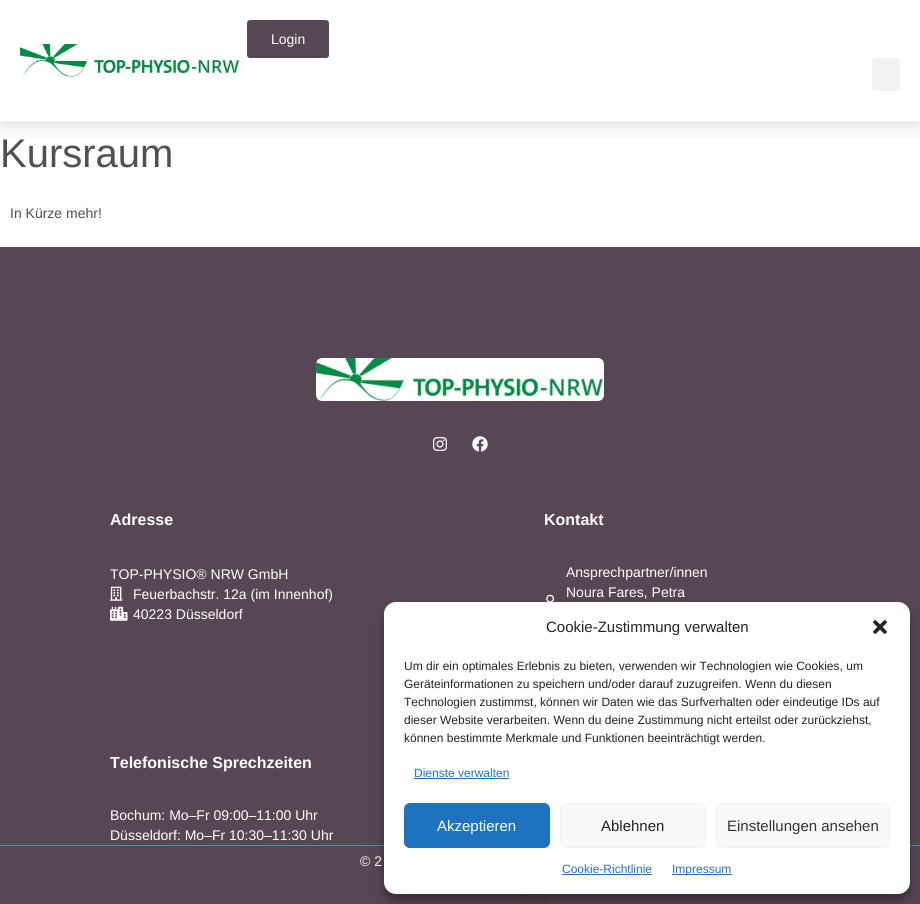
import math
import cairo

surface = cairo.ImageSurface(cairo.FORMAT_RGB24, 920, 904)
ctx = cairo.Context(surface)
options = cairo.FontOptions()
options.set_hint_metrics(cairo.HINT_METRICS_OFF)
options.set_hint_style(cairo.HINT_STYLE_NONE)
ctx.set_font_options(options)
ctx.set_miter_limit(4)


def round_rect(x, y, w, h, r):
    ctx.new_sub_path()
    for i, (u, v) in enumerate([(x + w - r, y + h - r), (x + r, y + h - r), (x + r, y + r), (x + w - r, y + r)]):
        ctx.arc(u, v, r, i * math.pi / 2, (i + 1) * math.pi / 2)
    ctx.close_path()


def shadow(x, y, w, h, r, blur, alpha):
    ctx.push_group_with_content(cairo.CONTENT_ALPHA)
    ctx.set_operator(cairo.OPERATOR_SOURCE)
    for i in range(15, -16, -2):
        e = blur * i / 6
        if min(w, h) + 2 * e > 0:
            ctx.set_source_rgba(0, 0, 0, alpha * math.erfc((i - 1) / 8.5) / 2)
            round_rect(x - e, y - e, w + 2 * e, h + 2 * e, max(0, min(r + e + blur * .6, min(w, h) / 2 + e)))
            ctx.fill()
    ctx.mask(ctx.pop_group())


def picture(path, x, y, w, h):
    ctx.save()
    ctx.set_source_surface(cairo.ImageSurface.create_from_png(path), x, y)
    ctx.rectangle(x, y, w, h)
    ctx.fill()
    ctx.restore()


ctx.set_source_rgb(1, 1, 1)
ctx.paint()
ctx.save()
ctx.rectangle(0, 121, 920, 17)
ctx.clip()
ctx.set_source_rgb(0, 0, 0)
shadow(0, 5, 920, 121, 0, 12, 0.12)
ctx.restore()
ctx.set_source_rgb(0.341, 0.278, 0.333)
round_rect(247, 20, 82, 38, 3)
ctx.fill()
ctx.select_font_face("Liberation Sans")
ctx.set_font_size(14)
ctx.set_source_rgb(1, 1, 1)
ctx.move_to(271, 44)
ctx.show_text("Login")
ctx.set_source_rgb(0.949, 0.949, 0.949)
round_rect(872, 58, 28, 33, 3)
ctx.fill()
picture("img1.png", 20, 44, 220, 33)
ctx.set_font_size(40)
ctx.set_source_rgb(0.325, 0.31, 0.31)
ctx.move_to(0, 167)
ctx.show_text("Kursraum")
ctx.set_font_size(14)
ctx.move_to(10, 218)
ctx.show_text("In Kürze mehr!")
ctx.set_source_rgb(0.341, 0.278, 0.333)
ctx.rectangle(0, 247, 920, 598)
ctx.fill()
picture("img2.png", 316, 358, 288, 43)
picture("img3.png", 433, 437, 14, 14)
picture("img4.png", 472, 436, 16, 16)
ctx.select_font_face("Liberation Sans", cairo.FONT_SLANT_NORMAL, cairo.FONT_WEIGHT_BOLD)
ctx.set_font_size(16)
ctx.set_source_rgb(1, 1, 1)
ctx.move_to(110, 525)
ctx.show_text("Adresse")
ctx.select_font_face("Liberation Sans")
ctx.set_font_size(14)
ctx.move_to(110, 579)
ctx.show_text("TOP-PHYSIO® NRW GmbH")
picture("img5.png", 110, 586, 13, 15)
ctx.move_to(133, 599)
ctx.show_text("Feuerbachstr. 12a (im Innenhof)")
picture("img6.png", 110, 606, 18, 15)
ctx.move_to(133, 619)
ctx.show_text("40223 Düsseldorf")
ctx.select_font_face("Liberation Sans", cairo.FONT_SLANT_NORMAL, cairo.FONT_WEIGHT_BOLD)
ctx.set_font_size(16)
ctx.move_to(544, 525)
ctx.show_text("Kontakt")
picture("img7.png", 546, 594, 9, 8)
ctx.select_font_face("Liberation Sans")
ctx.set_font_size(14)
ctx.move_to(566, 577)
ctx.show_text("Ansprechpartner/innen")
ctx.move_to(566, 597)
ctx.show_text("Noura Fares, Petra")
ctx.select_font_face("Liberation Sans", cairo.FONT_SLANT_NORMAL, cairo.FONT_WEIGHT_BOLD)
ctx.set_font_size(16)
ctx.move_to(110, 768)
ctx.show_text("Telefonische Sprechzeiten")
ctx.select_font_face("Liberation Sans")
ctx.set_font_size(14)
ctx.move_to(110, 820)
ctx.show_text("Bochum: Mo–Fr 09:00–11:00 Uhr")
ctx.move_to(110, 840)
ctx.show_text("Düsseldorf: Mo–Fr 10:30–11:30 Uhr")
ctx.set_source_rgb(0.341, 0.278, 0.333)
ctx.rectangle(0, 846, 920, 58)
ctx.fill()
ctx.set_source_rgb(0.251, 0.698, 0.082)
ctx.rectangle(0, 845, 920, 1)
ctx.fill()
ctx.set_source_rgb(1, 1, 1)
ctx.move_to(360, 866)
ctx.show_text("© 2")
ctx.set_source_rgb(0.325, 0.263, 0.318)
ctx.rectangle(520, 894, 28, 10)
ctx.fill()
ctx.set_source_rgb(0, 0, 0)
shadow(384, 608, 526, 292, 12, 3, 0.23)
shadow(384, 612, 526, 292, 12, 10, 0.19)
ctx.set_source_rgb(1, 1, 1)
round_rect(384, 602, 526, 292, 12)
ctx.fill()
ctx.set_font_size(15)
ctx.set_source_rgb(0.133, 0.133, 0.133)
ctx.move_to(546, 632)
ctx.show_text("Cookie-Zustimmung verwalten")
picture("img8.png", 873, 620, 14, 14)
ctx.set_font_size(12)
ctx.move_to(404, 670)
ctx.show_text("Um dir ein optimales Erlebnis zu bieten, verwenden wir Technologien wie Cookies, um")
ctx.move_to(404, 688)
ctx.show_text("Geräteinformationen zu speichern und/oder darauf zuzugreifen. Wenn du diesen")
ctx.move_to(404, 706)
ctx.show_text("Technologien zustimmst, können wir Daten wie das Surfverhalten oder eindeutige IDs auf")
ctx.move_to(404, 724)
ctx.show_text("dieser Website verarbeiten. Wenn du deine Zustimmung nicht erteilst oder zurückziehst,")
ctx.move_to(404, 742)
ctx.show_text("können bestimmte Merkmale und Funktionen beeinträchtigt werden.")
ctx.set_source_rgb(0.118, 0.451, 0.745)
ctx.move_to(414, 777)
ctx.show_text("Dienste verwalten")
ctx.rectangle(414, 778, 95, 1)
ctx.fill()
round_rect(404.5, 803.5, 145, 44, 5.5)
ctx.fill_preserve()
ctx.set_line_width(1)
ctx.stroke()
ctx.set_font_size(15)
ctx.set_source_rgb(1, 1, 1)
ctx.move_to(437, 831)
ctx.show_text("Akzeptieren")
ctx.set_source_rgb(0.976, 0.976, 0.976)
round_rect(560.5, 803.5, 145, 44, 5.5)
ctx.fill_preserve()
ctx.set_source_rgb(0.949, 0.949, 0.949)
ctx.stroke()
ctx.set_source_rgb(0.133, 0.133, 0.133)
ctx.move_to(601, 831)
ctx.show_text("Ablehnen")
ctx.set_source_rgb(0.976, 0.976, 0.976)
round_rect(716.5, 803.5, 173, 44, 5.5)
ctx.fill_preserve()
ctx.set_source_rgb(0.949, 0.949, 0.949)
ctx.stroke()
ctx.set_source_rgb(0.2, 0.2, 0.2)
ctx.move_to(727, 831)
ctx.show_text("Einstellungen ansehen")
ctx.set_font_size(12)
ctx.set_source_rgb(0.118, 0.451, 0.745)
ctx.move_to(562, 873)
ctx.show_text("Cookie-Richtlinie")
ctx.rectangle(562, 874, 90, 1)
ctx.fill()
ctx.rectangle(672, 874, 60, 1)
ctx.fill()
ctx.move_to(672, 873)
ctx.show_text("Impressum")
surface.write_to_png("page.png")
